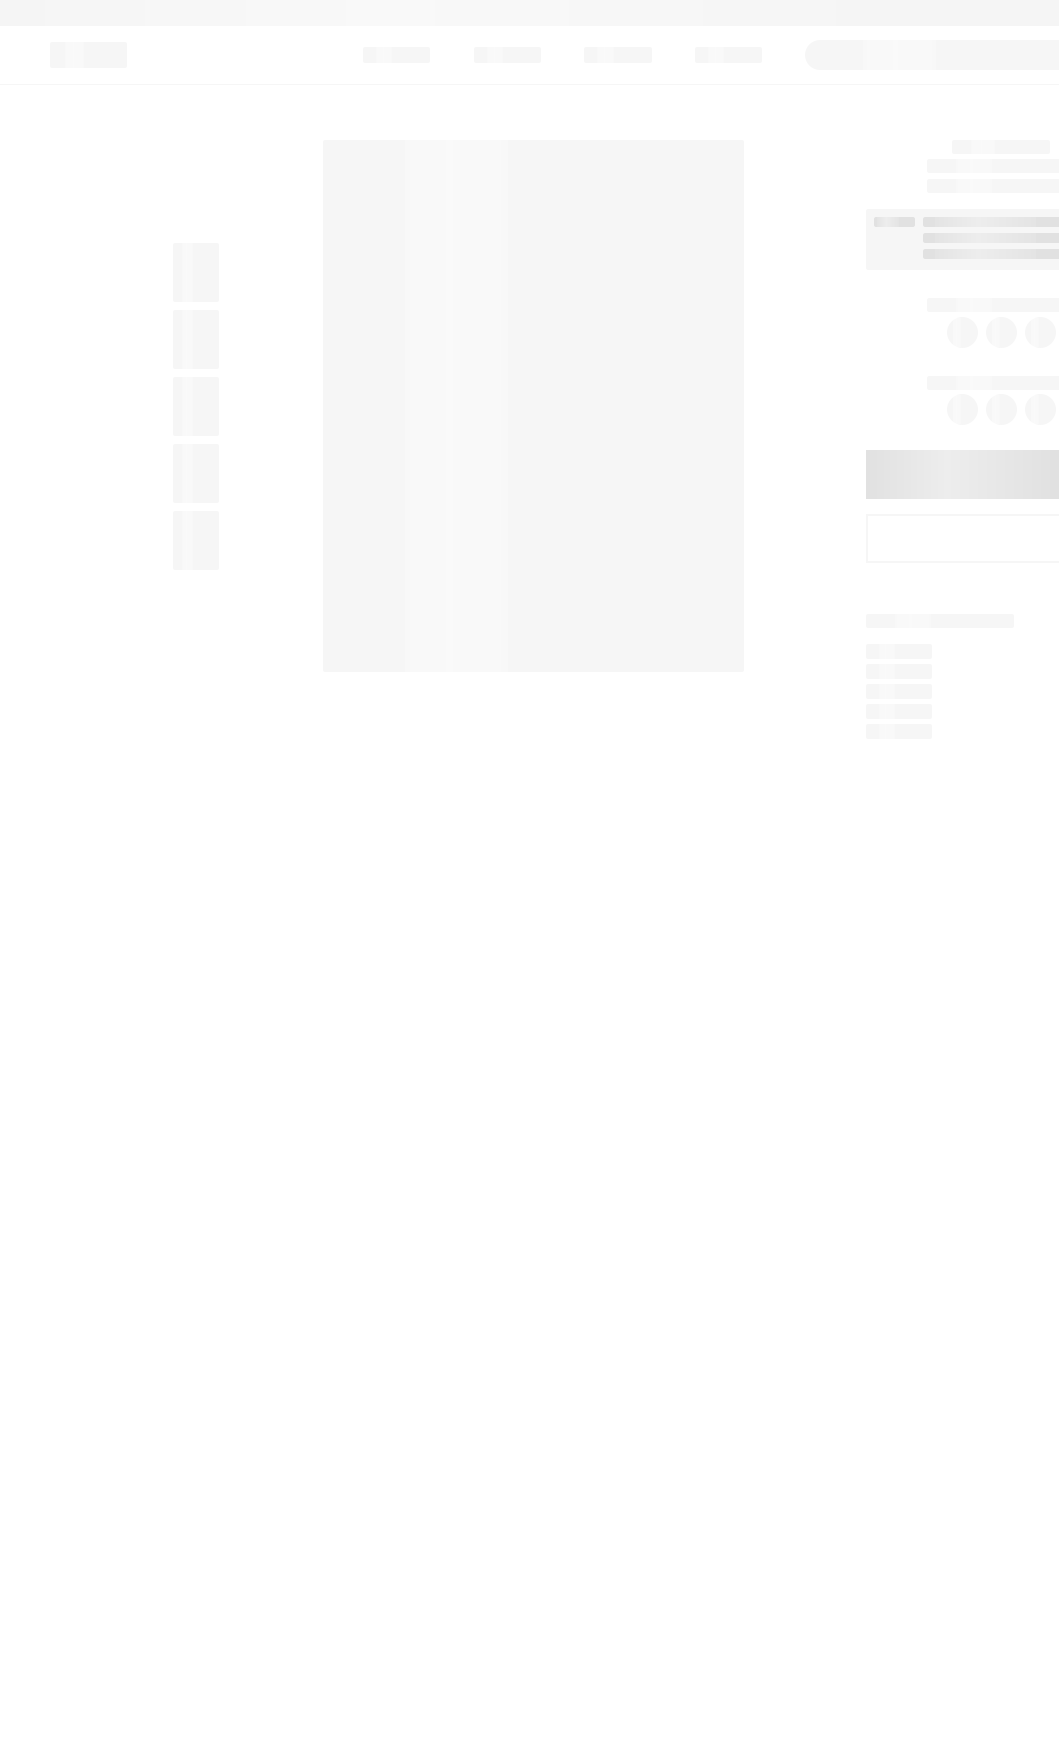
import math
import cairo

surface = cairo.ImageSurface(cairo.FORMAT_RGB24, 1059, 1760)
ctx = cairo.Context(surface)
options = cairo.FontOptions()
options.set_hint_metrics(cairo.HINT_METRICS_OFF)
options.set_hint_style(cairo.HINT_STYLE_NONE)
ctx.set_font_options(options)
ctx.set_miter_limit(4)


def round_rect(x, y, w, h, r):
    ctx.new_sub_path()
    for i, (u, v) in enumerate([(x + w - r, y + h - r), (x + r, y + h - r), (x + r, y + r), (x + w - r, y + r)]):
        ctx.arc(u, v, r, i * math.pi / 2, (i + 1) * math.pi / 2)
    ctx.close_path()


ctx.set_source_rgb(1, 1, 1)
ctx.paint()
ctx.set_source_rgb(0.961, 0.961, 0.961)
ctx.rectangle(0, 84, 1059, 1)
ctx.fill()
gradient = cairo.LinearGradient(0, 13, 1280, 13)
gradient.add_color_stop_rgba(0, 0.961, 0.961, 0.961, 1)
gradient.add_color_stop_rgba(0.3, 0.976, 0.976, 0.976, 1)
gradient.add_color_stop_rgba(0.7, 0.961, 0.961, 0.961, 1)
ctx.set_source(gradient)
ctx.rectangle(0, 0, 1059, 26)
ctx.fill()
ctx.set_source_rgb(0.961, 0.961, 0.961)
round_rect(50, 42, 77, 26, 2)
ctx.fill()
gradient = cairo.LinearGradient(50, 55, 127, 55)
gradient.add_color_stop_rgba(0, 1, 1, 1, 0)
gradient.add_color_stop_rgba(0.3, 1, 1, 1, 0.4)
gradient.add_color_stop_rgba(0.7, 1, 1, 1, 0)
ctx.set_source(gradient)
ctx.rectangle(65, 42, 19, 26)
ctx.fill()
ctx.set_source_rgb(0.961, 0.961, 0.961)
round_rect(363, 47, 67, 16, 2)
ctx.fill()
gradient = cairo.LinearGradient(363, 55, 430, 55)
gradient.add_color_stop_rgba(0, 1, 1, 1, 0)
gradient.add_color_stop_rgba(0.3, 1, 1, 1, 0.4)
gradient.add_color_stop_rgba(0.7, 1, 1, 1, 0)
ctx.set_source(gradient)
ctx.rectangle(376, 47, 16, 16)
ctx.fill()
ctx.set_source_rgb(0.961, 0.961, 0.961)
round_rect(474, 47, 67, 16, 2)
ctx.fill()
gradient = cairo.LinearGradient(474, 55, 541, 55)
gradient.add_color_stop_rgba(0, 1, 1, 1, 0)
gradient.add_color_stop_rgba(0.3, 1, 1, 1, 0.4)
gradient.add_color_stop_rgba(0.7, 1, 1, 1, 0)
ctx.set_source(gradient)
ctx.rectangle(487, 47, 16, 16)
ctx.fill()
ctx.set_source_rgb(0.961, 0.961, 0.961)
round_rect(584, 47, 68, 16, 2)
ctx.fill()
gradient = cairo.LinearGradient(584, 55, 652, 55)
gradient.add_color_stop_rgba(0, 1, 1, 1, 0)
gradient.add_color_stop_rgba(0.3, 1, 1, 1, 0.4)
gradient.add_color_stop_rgba(0.7, 1, 1, 1, 0)
ctx.set_source(gradient)
ctx.rectangle(597, 47, 17, 16)
ctx.fill()
ctx.set_source_rgb(0.961, 0.961, 0.961)
round_rect(695, 47, 67, 16, 2)
ctx.fill()
gradient = cairo.LinearGradient(695, 55, 762, 55)
gradient.add_color_stop_rgba(0, 1, 1, 1, 0)
gradient.add_color_stop_rgba(0.3, 1, 1, 1, 0.4)
gradient.add_color_stop_rgba(0.7, 1, 1, 1, 0)
ctx.set_source(gradient)
ctx.rectangle(708, 47, 16, 16)
ctx.fill()
ctx.set_source_rgb(0.961, 0.961, 0.961)
round_rect(805, 40, 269, 30, 15)
ctx.fill()
gradient = cairo.LinearGradient(805, 55, 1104, 55)
gradient.add_color_stop_rgba(0, 1, 1, 1, 0)
gradient.add_color_stop_rgba(0.3, 1, 1, 1, 0.4)
gradient.add_color_stop_rgba(0.7, 1, 1, 1, 0)
ctx.set_source(gradient)
ctx.rectangle(863, 40, 73, 30)
ctx.fill()
ctx.set_source_rgb(0.961, 0.961, 0.961)
round_rect(173, 243, 46, 59, 2)
ctx.fill()
gradient = cairo.LinearGradient(173, 273, 219, 273)
gradient.add_color_stop_rgba(0, 1, 1, 1, 0)
gradient.add_color_stop_rgba(0.3, 1, 1, 1, 0.4)
gradient.add_color_stop_rgba(0.7, 1, 1, 1, 0)
ctx.set_source(gradient)
ctx.rectangle(182, 243, 11, 59)
ctx.fill()
ctx.set_source_rgb(0.961, 0.961, 0.961)
round_rect(173, 310, 46, 59, 2)
ctx.fill()
gradient = cairo.LinearGradient(173, 340, 219, 340)
gradient.add_color_stop_rgba(0, 1, 1, 1, 0)
gradient.add_color_stop_rgba(0.3, 1, 1, 1, 0.4)
gradient.add_color_stop_rgba(0.7, 1, 1, 1, 0)
ctx.set_source(gradient)
ctx.rectangle(182, 310, 11, 59)
ctx.fill()
ctx.set_source_rgb(0.961, 0.961, 0.961)
round_rect(173, 377, 46, 59, 2)
ctx.fill()
gradient = cairo.LinearGradient(173, 407, 219, 407)
gradient.add_color_stop_rgba(0, 1, 1, 1, 0)
gradient.add_color_stop_rgba(0.3, 1, 1, 1, 0.4)
gradient.add_color_stop_rgba(0.7, 1, 1, 1, 0)
ctx.set_source(gradient)
ctx.rectangle(182, 377, 11, 59)
ctx.fill()
ctx.set_source_rgb(0.961, 0.961, 0.961)
round_rect(173, 444, 46, 59, 2)
ctx.fill()
gradient = cairo.LinearGradient(173, 474, 219, 474)
gradient.add_color_stop_rgba(0, 1, 1, 1, 0)
gradient.add_color_stop_rgba(0.3, 1, 1, 1, 0.4)
gradient.add_color_stop_rgba(0.7, 1, 1, 1, 0)
ctx.set_source(gradient)
ctx.rectangle(182, 444, 11, 59)
ctx.fill()
ctx.set_source_rgb(0.961, 0.961, 0.961)
round_rect(173, 511, 46, 59, 2)
ctx.fill()
gradient = cairo.LinearGradient(173, 541, 219, 541)
gradient.add_color_stop_rgba(0, 1, 1, 1, 0)
gradient.add_color_stop_rgba(0.3, 1, 1, 1, 0.4)
gradient.add_color_stop_rgba(0.7, 1, 1, 1, 0)
ctx.set_source(gradient)
ctx.rectangle(182, 511, 11, 59)
ctx.fill()
ctx.set_source_rgb(0.961, 0.961, 0.961)
round_rect(323, 140, 421, 532, 2)
ctx.fill()
gradient = cairo.LinearGradient(323, 406, 744, 406)
gradient.add_color_stop_rgba(0, 1, 1, 1, 0)
gradient.add_color_stop_rgba(0.3, 1, 1, 1, 0.4)
gradient.add_color_stop_rgba(0.7, 1, 1, 1, 0)
ctx.set_source(gradient)
ctx.rectangle(405, 140, 103, 532)
ctx.fill()
ctx.set_source_rgb(0.961, 0.961, 0.961)
round_rect(952, 140, 98, 14, 2)
ctx.fill()
gradient = cairo.LinearGradient(952, 147, 1050, 147)
gradient.add_color_stop_rgba(0, 1, 1, 1, 0)
gradient.add_color_stop_rgba(0.3, 1, 1, 1, 0.4)
gradient.add_color_stop_rgba(0.7, 1, 1, 1, 0)
ctx.set_source(gradient)
ctx.rectangle(971, 140, 24, 14)
ctx.fill()
ctx.set_source_rgb(0.961, 0.961, 0.961)
ctx.new_path()
ctx.move_to(929, 159)
ctx.line_to(1059, 159)
ctx.line_to(1059, 173)
ctx.line_to(929, 173)
ctx.curve_to(928, 173, 927, 172, 927, 171)
ctx.line_to(927, 161)
ctx.curve_to(927, 160, 928, 159, 929, 159)
ctx.close_path()
ctx.fill()
gradient = cairo.LinearGradient(927, 166, 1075, 166)
gradient.add_color_stop_rgba(0, 1, 1, 1, 0)
gradient.add_color_stop_rgba(0.3, 1, 1, 1, 0.4)
gradient.add_color_stop_rgba(0.7, 1, 1, 1, 0)
ctx.set_source(gradient)
ctx.rectangle(956, 159, 36, 14)
ctx.fill()
ctx.set_source_rgb(0.961, 0.961, 0.961)
ctx.new_path()
ctx.move_to(929, 179)
ctx.line_to(1059, 179)
ctx.line_to(1059, 193)
ctx.line_to(929, 193)
ctx.curve_to(928, 193, 927, 192, 927, 191)
ctx.line_to(927, 181)
ctx.curve_to(927, 180, 928, 179, 929, 179)
ctx.close_path()
ctx.fill()
gradient = cairo.LinearGradient(927, 186, 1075, 186)
gradient.add_color_stop_rgba(0, 1, 1, 1, 0)
gradient.add_color_stop_rgba(0.3, 1, 1, 1, 0.4)
gradient.add_color_stop_rgba(0.7, 1, 1, 1, 0)
ctx.set_source(gradient)
ctx.rectangle(956, 179, 36, 14)
ctx.fill()
ctx.set_source_rgb(0.961, 0.961, 0.961)
ctx.new_path()
ctx.move_to(868, 209)
ctx.line_to(1059, 209)
ctx.line_to(1059, 270)
ctx.line_to(868, 270)
ctx.curve_to(867, 270, 866, 269, 866, 268)
ctx.line_to(866, 211)
ctx.curve_to(866, 210, 867, 209, 868, 209)
ctx.close_path()
ctx.fill()
ctx.set_source_rgb(0.882, 0.882, 0.882)
round_rect(874, 217, 41, 10, 2)
ctx.fill()
gradient = cairo.LinearGradient(874, 222, 915, 222)
gradient.add_color_stop_rgba(0, 1, 1, 1, 0)
gradient.add_color_stop_rgba(0.3, 1, 1, 1, 0.4)
gradient.add_color_stop_rgba(0.7, 1, 1, 1, 0)
ctx.set_source(gradient)
ctx.rectangle(877, 217, 22, 10)
ctx.fill()
ctx.set_source_rgb(0.882, 0.882, 0.882)
ctx.new_path()
ctx.move_to(925, 217)
ctx.line_to(1059, 217)
ctx.line_to(1059, 227)
ctx.line_to(925, 227)
ctx.curve_to(924, 227, 923, 226, 923, 225)
ctx.line_to(923, 219)
ctx.curve_to(923, 218, 924, 217, 925, 217)
ctx.close_path()
ctx.fill()
gradient = cairo.LinearGradient(923, 222, 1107, 222)
gradient.add_color_stop_rgba(0, 1, 1, 1, 0)
gradient.add_color_stop_rgba(0.3, 1, 1, 1, 0.4)
gradient.add_color_stop_rgba(0.7, 1, 1, 1, 0)
ctx.set_source(gradient)
ctx.rectangle(935, 217, 101, 10)
ctx.fill()
ctx.set_source_rgb(0.882, 0.882, 0.882)
ctx.new_path()
ctx.move_to(925, 233)
ctx.line_to(1059, 233)
ctx.line_to(1059, 243)
ctx.line_to(925, 243)
ctx.curve_to(924, 243, 923, 242, 923, 241)
ctx.line_to(923, 235)
ctx.curve_to(923, 234, 924, 233, 925, 233)
ctx.close_path()
ctx.fill()
gradient = cairo.LinearGradient(923, 238, 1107, 238)
gradient.add_color_stop_rgba(0, 1, 1, 1, 0)
gradient.add_color_stop_rgba(0.3, 1, 1, 1, 0.4)
gradient.add_color_stop_rgba(0.7, 1, 1, 1, 0)
ctx.set_source(gradient)
ctx.rectangle(935, 233, 101, 10)
ctx.fill()
ctx.set_source_rgb(0.882, 0.882, 0.882)
ctx.new_path()
ctx.move_to(925, 249)
ctx.line_to(1059, 249)
ctx.line_to(1059, 259)
ctx.line_to(925, 259)
ctx.curve_to(924, 259, 923, 258, 923, 257)
ctx.line_to(923, 251)
ctx.curve_to(923, 250, 924, 249, 925, 249)
ctx.close_path()
ctx.fill()
gradient = cairo.LinearGradient(923, 254, 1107, 254)
gradient.add_color_stop_rgba(0, 1, 1, 1, 0)
gradient.add_color_stop_rgba(0.3, 1, 1, 1, 0.4)
gradient.add_color_stop_rgba(0.7, 1, 1, 1, 0)
ctx.set_source(gradient)
ctx.rectangle(935, 249, 101, 10)
ctx.fill()
ctx.set_source_rgb(0.961, 0.961, 0.961)
ctx.new_path()
ctx.move_to(929, 298)
ctx.line_to(1059, 298)
ctx.line_to(1059, 312)
ctx.line_to(929, 312)
ctx.curve_to(928, 312, 927, 311, 927, 310)
ctx.line_to(927, 300)
ctx.curve_to(927, 299, 928, 298, 929, 298)
ctx.close_path()
ctx.fill()
gradient = cairo.LinearGradient(927, 305, 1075, 305)
gradient.add_color_stop_rgba(0, 1, 1, 1, 0)
gradient.add_color_stop_rgba(0.3, 1, 1, 1, 0.4)
gradient.add_color_stop_rgba(0.7, 1, 1, 1, 0)
ctx.set_source(gradient)
ctx.rectangle(956, 298, 36, 14)
ctx.fill()
ctx.set_source_rgb(0.961, 0.961, 0.961)
ctx.arc(962.5, 332.5, 15.5, 0, 2 * math.pi)
ctx.fill()
gradient = cairo.LinearGradient(947, 333, 978, 333)
gradient.add_color_stop_rgba(0, 1, 1, 1, 0)
gradient.add_color_stop_rgba(0.3, 1, 1, 1, 0.4)
gradient.add_color_stop_rgba(0.7, 1, 1, 1, 0)
ctx.set_source(gradient)
ctx.rectangle(953, 318, 8, 29)
ctx.fill()
ctx.set_source_rgb(0.961, 0.961, 0.961)
ctx.arc(1001.5, 332.5, 15.5, 0, 2 * math.pi)
ctx.fill()
gradient = cairo.LinearGradient(986, 333, 1017, 333)
gradient.add_color_stop_rgba(0, 1, 1, 1, 0)
gradient.add_color_stop_rgba(0.3, 1, 1, 1, 0.4)
gradient.add_color_stop_rgba(0.7, 1, 1, 1, 0)
ctx.set_source(gradient)
ctx.rectangle(992, 318, 8, 29)
ctx.fill()
ctx.set_source_rgb(0.961, 0.961, 0.961)
ctx.arc(1040.5, 332.5, 15.5, 0, 2 * math.pi)
ctx.fill()
gradient = cairo.LinearGradient(1025, 333, 1056, 333)
gradient.add_color_stop_rgba(0, 1, 1, 1, 0)
gradient.add_color_stop_rgba(0.3, 1, 1, 1, 0.4)
gradient.add_color_stop_rgba(0.7, 1, 1, 1, 0)
ctx.set_source(gradient)
ctx.rectangle(1031, 318, 8, 29)
ctx.fill()
ctx.set_source_rgb(0.961, 0.961, 0.961)
ctx.new_path()
ctx.move_to(929, 376)
ctx.line_to(1059, 376)
ctx.line_to(1059, 390)
ctx.line_to(929, 390)
ctx.curve_to(928, 390, 927, 389, 927, 388)
ctx.line_to(927, 378)
ctx.curve_to(927, 377, 928, 376, 929, 376)
ctx.close_path()
ctx.fill()
gradient = cairo.LinearGradient(927, 383, 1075, 383)
gradient.add_color_stop_rgba(0, 1, 1, 1, 0)
gradient.add_color_stop_rgba(0.3, 1, 1, 1, 0.4)
gradient.add_color_stop_rgba(0.7, 1, 1, 1, 0)
ctx.set_source(gradient)
ctx.rectangle(956, 376, 36, 14)
ctx.fill()
ctx.set_source_rgb(0.961, 0.961, 0.961)
ctx.arc(962.5, 409.5, 15.5, 0, 2 * math.pi)
ctx.fill()
gradient = cairo.LinearGradient(947, 410, 978, 410)
gradient.add_color_stop_rgba(0, 1, 1, 1, 0)
gradient.add_color_stop_rgba(0.3, 1, 1, 1, 0.4)
gradient.add_color_stop_rgba(0.7, 1, 1, 1, 0)
ctx.set_source(gradient)
ctx.rectangle(953, 395, 8, 29)
ctx.fill()
ctx.set_source_rgb(0.961, 0.961, 0.961)
ctx.arc(1001.5, 409.5, 15.5, 0, 2 * math.pi)
ctx.fill()
gradient = cairo.LinearGradient(986, 410, 1017, 410)
gradient.add_color_stop_rgba(0, 1, 1, 1, 0)
gradient.add_color_stop_rgba(0.3, 1, 1, 1, 0.4)
gradient.add_color_stop_rgba(0.7, 1, 1, 1, 0)
ctx.set_source(gradient)
ctx.rectangle(992, 395, 8, 29)
ctx.fill()
ctx.set_source_rgb(0.961, 0.961, 0.961)
ctx.arc(1040.5, 409.5, 15.5, 0, 2 * math.pi)
ctx.fill()
gradient = cairo.LinearGradient(1025, 410, 1056, 410)
gradient.add_color_stop_rgba(0, 1, 1, 1, 0)
gradient.add_color_stop_rgba(0.3, 1, 1, 1, 0.4)
gradient.add_color_stop_rgba(0.7, 1, 1, 1, 0)
ctx.set_source(gradient)
ctx.rectangle(1031, 395, 8, 29)
ctx.fill()
gradient = cairo.LinearGradient(866, 475, 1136, 475)
gradient.add_color_stop_rgba(0, 0.882, 0.882, 0.882, 1)
gradient.add_color_stop_rgba(0.3, 0.929, 0.929, 0.929, 1)
gradient.add_color_stop_rgba(0.7, 0.882, 0.882, 0.882, 1)
ctx.set_source(gradient)
ctx.rectangle(866, 450, 193, 49)
ctx.fill()
ctx.rectangle(867, 515, 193, 47)
ctx.set_source_rgb(0.961, 0.961, 0.961)
ctx.stroke()
round_rect(866, 614, 148, 14, 2)
ctx.fill()
gradient = cairo.LinearGradient(866, 621, 1014, 621)
gradient.add_color_stop_rgba(0, 1, 1, 1, 0)
gradient.add_color_stop_rgba(0.3, 1, 1, 1, 0.4)
gradient.add_color_stop_rgba(0.7, 1, 1, 1, 0)
ctx.set_source(gradient)
ctx.rectangle(895, 614, 36, 14)
ctx.fill()
ctx.set_source_rgb(0.961, 0.961, 0.961)
round_rect(866, 644, 66, 15, 2)
ctx.fill()
gradient = cairo.LinearGradient(866, 652, 932, 652)
gradient.add_color_stop_rgba(0, 1, 1, 1, 0)
gradient.add_color_stop_rgba(0.3, 1, 1, 1, 0.4)
gradient.add_color_stop_rgba(0.7, 1, 1, 1, 0)
ctx.set_source(gradient)
ctx.rectangle(879, 644, 16, 15)
ctx.fill()
ctx.set_source_rgb(0.961, 0.961, 0.961)
round_rect(866, 664, 66, 15, 2)
ctx.fill()
gradient = cairo.LinearGradient(866, 672, 932, 672)
gradient.add_color_stop_rgba(0, 1, 1, 1, 0)
gradient.add_color_stop_rgba(0.3, 1, 1, 1, 0.4)
gradient.add_color_stop_rgba(0.7, 1, 1, 1, 0)
ctx.set_source(gradient)
ctx.rectangle(879, 664, 16, 15)
ctx.fill()
ctx.set_source_rgb(0.961, 0.961, 0.961)
round_rect(866, 684, 66, 15, 2)
ctx.fill()
gradient = cairo.LinearGradient(866, 692, 932, 692)
gradient.add_color_stop_rgba(0, 1, 1, 1, 0)
gradient.add_color_stop_rgba(0.3, 1, 1, 1, 0.4)
gradient.add_color_stop_rgba(0.7, 1, 1, 1, 0)
ctx.set_source(gradient)
ctx.rectangle(879, 684, 16, 15)
ctx.fill()
ctx.set_source_rgb(0.961, 0.961, 0.961)
round_rect(866, 704, 66, 15, 2)
ctx.fill()
gradient = cairo.LinearGradient(866, 712, 932, 712)
gradient.add_color_stop_rgba(0, 1, 1, 1, 0)
gradient.add_color_stop_rgba(0.3, 1, 1, 1, 0.4)
gradient.add_color_stop_rgba(0.7, 1, 1, 1, 0)
ctx.set_source(gradient)
ctx.rectangle(879, 704, 16, 15)
ctx.fill()
ctx.set_source_rgb(0.961, 0.961, 0.961)
round_rect(866, 724, 66, 15, 2)
ctx.fill()
gradient = cairo.LinearGradient(866, 732, 932, 732)
gradient.add_color_stop_rgba(0, 1, 1, 1, 0)
gradient.add_color_stop_rgba(0.3, 1, 1, 1, 0.4)
gradient.add_color_stop_rgba(0.7, 1, 1, 1, 0)
ctx.set_source(gradient)
ctx.rectangle(879, 724, 16, 15)
ctx.fill()
surface.write_to_png("page.png")
